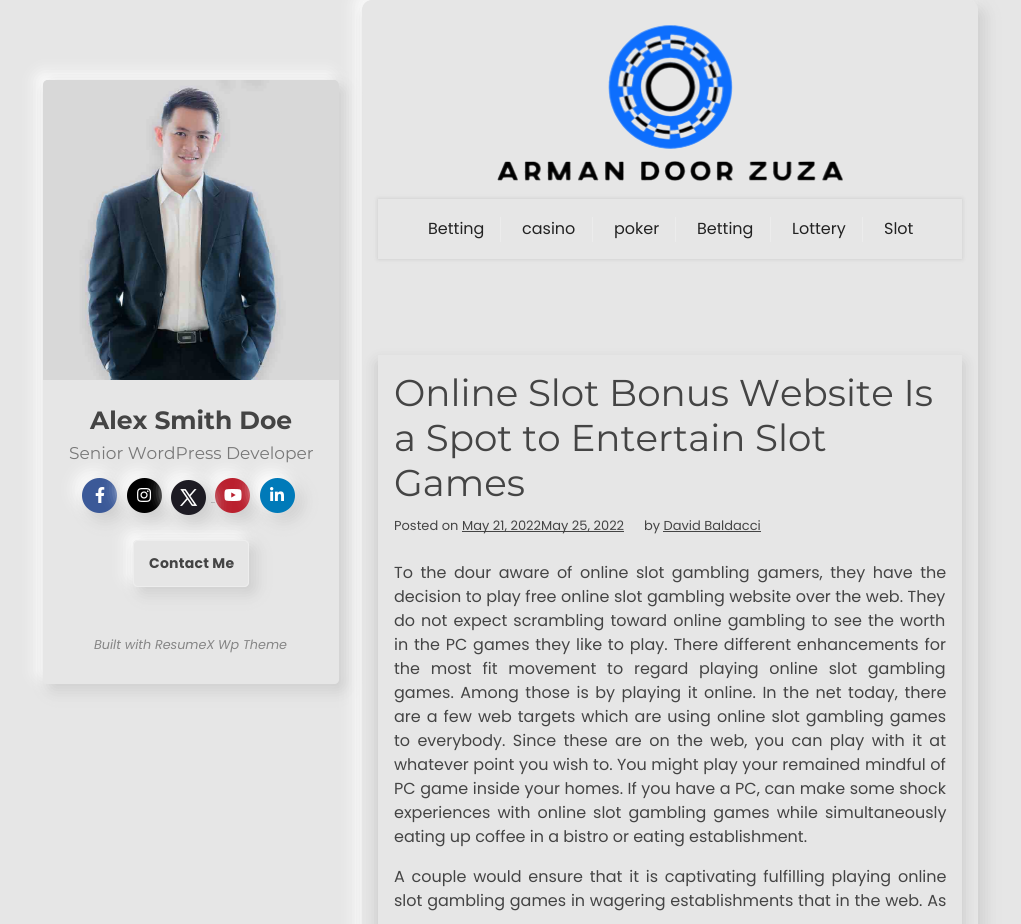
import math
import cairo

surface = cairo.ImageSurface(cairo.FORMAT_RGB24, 1021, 924)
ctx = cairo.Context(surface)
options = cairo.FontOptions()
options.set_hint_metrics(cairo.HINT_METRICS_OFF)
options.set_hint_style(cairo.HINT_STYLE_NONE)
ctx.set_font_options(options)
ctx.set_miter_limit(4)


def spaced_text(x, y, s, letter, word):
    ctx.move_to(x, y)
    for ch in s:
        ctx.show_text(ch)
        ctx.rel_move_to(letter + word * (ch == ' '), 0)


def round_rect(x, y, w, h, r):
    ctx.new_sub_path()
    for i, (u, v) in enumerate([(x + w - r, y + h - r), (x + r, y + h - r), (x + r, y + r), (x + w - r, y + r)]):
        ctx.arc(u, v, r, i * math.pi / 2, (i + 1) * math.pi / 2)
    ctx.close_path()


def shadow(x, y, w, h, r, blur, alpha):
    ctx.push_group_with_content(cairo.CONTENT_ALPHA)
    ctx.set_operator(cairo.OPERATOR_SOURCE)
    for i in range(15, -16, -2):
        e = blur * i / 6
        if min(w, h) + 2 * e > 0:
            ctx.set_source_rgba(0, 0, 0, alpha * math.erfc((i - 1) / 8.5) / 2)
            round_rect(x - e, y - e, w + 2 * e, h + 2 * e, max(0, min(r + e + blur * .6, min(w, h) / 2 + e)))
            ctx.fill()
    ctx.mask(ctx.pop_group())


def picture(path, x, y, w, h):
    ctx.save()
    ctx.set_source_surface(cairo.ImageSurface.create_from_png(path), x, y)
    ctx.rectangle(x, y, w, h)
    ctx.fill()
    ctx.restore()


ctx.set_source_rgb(0.902, 0.902, 0.902)
ctx.paint()
ctx.save()
ctx.set_fill_rule(cairo.FILL_RULE_EVEN_ODD)
ctx.new_path()
ctx.move_to(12, 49)
ctx.line_to(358, 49)
ctx.line_to(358, 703)
ctx.line_to(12, 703)
ctx.close_path()
ctx.move_to(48, 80)
ctx.line_to(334, 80)
ctx.curve_to(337, 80, 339, 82, 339, 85)
ctx.line_to(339, 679)
ctx.curve_to(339, 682, 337, 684, 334, 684)
ctx.line_to(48, 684)
ctx.curve_to(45, 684, 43, 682, 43, 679)
ctx.line_to(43, 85)
ctx.curve_to(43, 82, 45, 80, 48, 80)
ctx.close_path()
ctx.clip()
ctx.set_source_rgb(1, 1, 1)
shadow(37, 74, 296, 604, 5, 8, 1)
ctx.restore()
ctx.save()
ctx.set_fill_rule(cairo.FILL_RULE_EVEN_ODD)
ctx.new_path()
ctx.move_to(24, 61)
ctx.line_to(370, 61)
ctx.line_to(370, 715)
ctx.line_to(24, 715)
ctx.close_path()
ctx.move_to(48, 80)
ctx.line_to(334, 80)
ctx.curve_to(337, 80, 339, 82, 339, 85)
ctx.line_to(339, 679)
ctx.curve_to(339, 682, 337, 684, 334, 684)
ctx.line_to(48, 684)
ctx.curve_to(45, 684, 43, 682, 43, 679)
ctx.line_to(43, 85)
ctx.curve_to(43, 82, 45, 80, 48, 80)
ctx.close_path()
ctx.clip()
ctx.set_source_rgb(0.8, 0.8, 0.8)
shadow(49, 86, 296, 604, 5, 8, 1)
ctx.restore()
ctx.save()
ctx.set_fill_rule(cairo.FILL_RULE_EVEN_ODD)
ctx.new_path()
ctx.move_to(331, 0)
ctx.line_to(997, 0)
ctx.line_to(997, 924)
ctx.line_to(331, 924)
ctx.close_path()
ctx.move_to(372, 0)
ctx.line_to(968, 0)
ctx.curve_to(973.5, 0, 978, 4.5, 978, 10)
ctx.line_to(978, 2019)
ctx.curve_to(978, 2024.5, 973.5, 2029, 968, 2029)
ctx.line_to(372, 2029)
ctx.curve_to(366.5, 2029, 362, 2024.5, 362, 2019)
ctx.line_to(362, 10)
ctx.curve_to(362, 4.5, 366.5, 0, 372, 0)
ctx.close_path()
ctx.clip()
ctx.set_source_rgb(1, 1, 1)
shadow(356, -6, 616, 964, 10, 8, 1)
ctx.restore()
picture("img1.png", 43, 80, 296, 300)
ctx.select_font_face("Montserrat", cairo.FONT_SLANT_NORMAL, cairo.FONT_WEIGHT_BOLD)
ctx.set_font_size(25)
ctx.set_source_rgb(0.267, 0.267, 0.267)
ctx.move_to(90, 429)
ctx.show_text("Alex Smith Doe")
ctx.select_font_face("Montserrat")
ctx.set_font_size(17)
ctx.set_source_rgb(0.467, 0.467, 0.467)
ctx.move_to(69, 459)
ctx.show_text("Senior WordPress Developer")
ctx.set_source_rgb(1, 1, 1)
shadow(76, 472, 35, 35, 17.5, 8, 1)
ctx.set_source_rgb(0.8, 0.8, 0.8)
shadow(88, 484, 35, 35, 17.5, 8, 1)
ctx.set_source_rgb(0.231, 0.349, 0.596)
ctx.arc(99.5, 495.5, 17.5, 0, 2 * math.pi)
ctx.fill()
picture("img2.png", 95, 487, 10, 16)
ctx.set_source_rgb(1, 1, 1)
shadow(121, 472, 35, 35, 17.5, 8, 1)
ctx.set_source_rgb(0.8, 0.8, 0.8)
shadow(133, 484, 35, 35, 17.5, 8, 1)
ctx.set_source_rgb(0, 0, 0)
ctx.arc(144.5, 495.5, 17.5, 0, 2 * math.pi)
ctx.fill()
picture("img3.png", 137, 488, 15, 14)
ctx.set_source_rgb(0.267, 0.267, 0.267)
ctx.rectangle(211, 502, 4, 1)
ctx.fill()
ctx.set_source_rgb(1, 1, 1)
shadow(209, 472, 35, 35, 17.5, 8, 1)
ctx.set_source_rgb(0.8, 0.8, 0.8)
shadow(221, 484, 35, 35, 17.5, 8, 1)
ctx.set_source_rgb(0.729, 0.125, 0.18)
ctx.arc(232.5, 495.5, 17.5, 0, 2 * math.pi)
ctx.fill()
picture("img4.png", 224, 489, 18, 12)
ctx.set_source_rgb(1, 1, 1)
shadow(165, 474, 35, 35, 17.5, 8, 1)
ctx.set_source_rgb(0.8, 0.8, 0.8)
shadow(266, 484, 35, 35, 17.5, 8, 1)
ctx.set_source_rgb(1, 1, 1)
shadow(254, 472, 35, 35, 17.5, 8, 1)
ctx.set_source_rgb(0, 0.478, 0.725)
ctx.arc(277.5, 495.5, 17.5, 0, 2 * math.pi)
ctx.fill()
ctx.save()
ctx.set_fill_rule(cairo.FILL_RULE_EVEN_ODD)
ctx.new_path()
ctx.move_to(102, 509)
ctx.line_to(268, 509)
ctx.line_to(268, 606)
ctx.line_to(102, 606)
ctx.close_path()
ctx.move_to(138, 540)
ctx.line_to(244, 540)
ctx.curve_to(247, 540, 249, 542, 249, 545)
ctx.line_to(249, 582)
ctx.curve_to(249, 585, 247, 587, 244, 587)
ctx.line_to(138, 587)
ctx.curve_to(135, 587, 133, 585, 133, 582)
ctx.line_to(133, 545)
ctx.curve_to(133, 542, 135, 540, 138, 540)
ctx.close_path()
ctx.clip()
ctx.set_source_rgb(1, 1, 1)
shadow(127, 534, 116, 47, 5, 8, 1)
ctx.restore()
ctx.save()
ctx.set_fill_rule(cairo.FILL_RULE_EVEN_ODD)
ctx.new_path()
ctx.move_to(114, 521)
ctx.line_to(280, 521)
ctx.line_to(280, 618)
ctx.line_to(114, 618)
ctx.close_path()
ctx.move_to(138, 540)
ctx.line_to(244, 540)
ctx.curve_to(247, 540, 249, 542, 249, 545)
ctx.line_to(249, 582)
ctx.curve_to(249, 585, 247, 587, 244, 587)
ctx.line_to(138, 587)
ctx.curve_to(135, 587, 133, 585, 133, 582)
ctx.line_to(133, 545)
ctx.curve_to(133, 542, 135, 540, 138, 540)
ctx.close_path()
ctx.clip()
ctx.set_source_rgb(0.8, 0.8, 0.8)
shadow(139, 546, 116, 47, 5, 8, 1)
ctx.restore()
round_rect(133.5, 540.5, 115, 46, 4.5)
ctx.set_source_rgb(0.929, 0.929, 0.929)
ctx.set_line_width(1)
ctx.stroke()
ctx.set_source_rgb(0.8, 0.8, 0.8)
shadow(177, 486, 35, 35, 17.5, 8, 1)
ctx.set_source_rgb(0.114, 0.106, 0.137)
ctx.arc(188.5, 497.5, 17.5, 0, 2 * math.pi)
ctx.fill()
picture("img5.png", 180, 489, 18, 17)
picture("img6.png", 270, 487, 14, 14)
ctx.select_font_face("Poppins", cairo.FONT_SLANT_NORMAL, cairo.FONT_WEIGHT_BOLD)
ctx.set_font_size(14)
ctx.set_source_rgb(0.267, 0.267, 0.267)
spaced_text(149, 568, "Contact Me", 0.25, 0)
ctx.select_font_face("Poppins", cairo.FONT_SLANT_ITALIC)
ctx.set_font_size(12.75)
ctx.set_source_rgb(0.522, 0.522, 0.522)
ctx.move_to(94, 649)
ctx.show_text("Built with ResumeX Wp Theme")
ctx.save()
ctx.set_fill_rule(cairo.FILL_RULE_EVEN_ODD)
ctx.new_path()
ctx.move_to(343, 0)
ctx.line_to(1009, 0)
ctx.line_to(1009, 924)
ctx.line_to(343, 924)
ctx.close_path()
ctx.move_to(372, 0)
ctx.line_to(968, 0)
ctx.curve_to(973.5, 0, 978, 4.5, 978, 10)
ctx.line_to(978, 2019)
ctx.curve_to(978, 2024.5, 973.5, 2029, 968, 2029)
ctx.line_to(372, 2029)
ctx.curve_to(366.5, 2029, 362, 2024.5, 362, 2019)
ctx.line_to(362, 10)
ctx.curve_to(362, 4.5, 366.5, 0, 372, 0)
ctx.close_path()
ctx.clip()
ctx.set_source_rgb(0.8, 0.8, 0.8)
shadow(368, 6, 616, 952, 10, 8, 1)
ctx.restore()
picture("img7.png", 497, 25, 346, 156)
ctx.save()
ctx.set_fill_rule(cairo.FILL_RULE_EVEN_ODD)
ctx.new_path()
ctx.move_to(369, 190)
ctx.line_to(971, 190)
ctx.line_to(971, 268)
ctx.line_to(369, 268)
ctx.close_path()
ctx.move_to(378, 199)
ctx.line_to(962, 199)
ctx.line_to(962, 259)
ctx.line_to(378, 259)
ctx.close_path()
ctx.clip()
ctx.set_source_rgb(0, 0, 0)
shadow(378, 199, 584, 60, 0, 2.5, 0.12)
ctx.restore()
ctx.select_font_face("Poppins")
ctx.set_font_size(16)
ctx.set_source_rgb(0.133, 0.133, 0.133)
ctx.move_to(428, 234)
ctx.show_text("Betting")
ctx.set_source_rgb(0.922, 0.922, 0.922)
ctx.rectangle(500, 217, 1, 25)
ctx.fill()
ctx.set_source_rgb(0.133, 0.133, 0.133)
ctx.move_to(522, 234)
ctx.show_text("casino")
ctx.set_source_rgb(0.922, 0.922, 0.922)
ctx.rectangle(592, 217, 1, 25)
ctx.fill()
ctx.set_source_rgb(0.133, 0.133, 0.133)
ctx.move_to(614, 234)
ctx.show_text("poker")
ctx.set_source_rgb(0.922, 0.922, 0.922)
ctx.rectangle(675, 217, 1, 25)
ctx.fill()
ctx.set_source_rgb(0.133, 0.133, 0.133)
ctx.move_to(697, 234)
ctx.show_text("Betting")
ctx.set_source_rgb(0.922, 0.922, 0.922)
ctx.rectangle(770, 217, 1, 25)
ctx.fill()
ctx.set_source_rgb(0.133, 0.133, 0.133)
ctx.move_to(792, 234)
ctx.show_text("Lottery")
ctx.set_source_rgb(0.922, 0.922, 0.922)
ctx.rectangle(862, 217, 1, 25)
ctx.fill()
ctx.set_source_rgb(0.133, 0.133, 0.133)
ctx.move_to(884, 234)
ctx.show_text("Slot")
ctx.save()
ctx.set_fill_rule(cairo.FILL_RULE_EVEN_ODD)
ctx.new_path()
ctx.move_to(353, 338)
ctx.line_to(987, 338)
ctx.line_to(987, 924)
ctx.line_to(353, 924)
ctx.close_path()
ctx.move_to(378, 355)
ctx.line_to(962, 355)
ctx.line_to(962, 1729)
ctx.line_to(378, 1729)
ctx.close_path()
ctx.clip()
ctx.set_source_rgb(0, 0, 0)
shadow(378, 363, 584, 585, 0, 8, 0.15)
ctx.restore()
ctx.select_font_face("Montserrat")
ctx.set_font_size(37.25)
ctx.set_source_rgb(0.267, 0.267, 0.267)
ctx.move_to(394, 406)
ctx.show_text("Online Slot Bonus Website Is")
ctx.move_to(394, 451)
ctx.show_text("a Spot to Entertain Slot")
ctx.move_to(394, 496)
ctx.show_text("Games")
ctx.select_font_face("Poppins")
ctx.set_font_size(13)
ctx.move_to(394, 530)
ctx.show_text("Posted on")
ctx.rectangle(462, 531, 162, 1)
ctx.fill()
ctx.move_to(462, 530)
ctx.show_text("May 21, 2022May 25, 2022")
ctx.move_to(644, 530)
ctx.show_text("by David Baldacci")
ctx.rectangle(663, 531, 98, 1)
ctx.fill()
ctx.set_font_size(16)
spaced_text(394, 578, "To the dour aware of online slot gambling gamers, they have the", 0, 3.25)
spaced_text(394, 602, "decision to play free online slot gambling website over the web. They", 0, 0.25)
spaced_text(394, 626, "do not expect scrambling toward online gambling to see the worth", 0, 1.75)
spaced_text(394, 650, "in the PC games they like to play. There different enhancements for", 0, 1.5)
spaced_text(394, 674, "the most fit movement to regard playing online slot gambling", 0, 6.5)
spaced_text(394, 698, "games. Among those is by playing it online. In the net today, there", 0, 2.25)
spaced_text(394, 722, "are a few web targets which are using online slot gambling games", 0, 1.75)
spaced_text(394, 746, "to everybody. Since these are on the web, you can play with it at", 0, 3.1)
spaced_text(394, 770, "whatever point you wish to. You might play your remained mindful of", 0, 0.25)
spaced_text(394, 794, "PC game inside your homes. If you have a PC, can make some shock", 0, 0.25)
spaced_text(394, 818, "experiences with online slot gambling games while simultaneously", 0, 2.75)
ctx.move_to(394, 842)
ctx.show_text("eating up coffee in a bistro or eating establishment.")
spaced_text(394, 882, "A couple would ensure that it is captivating fulfilling playing online", 0, 2.5)
spaced_text(394, 906, "slot gambling games in wagering establishments that in the web. As", 0, 0.5)
surface.write_to_png("page.png")
